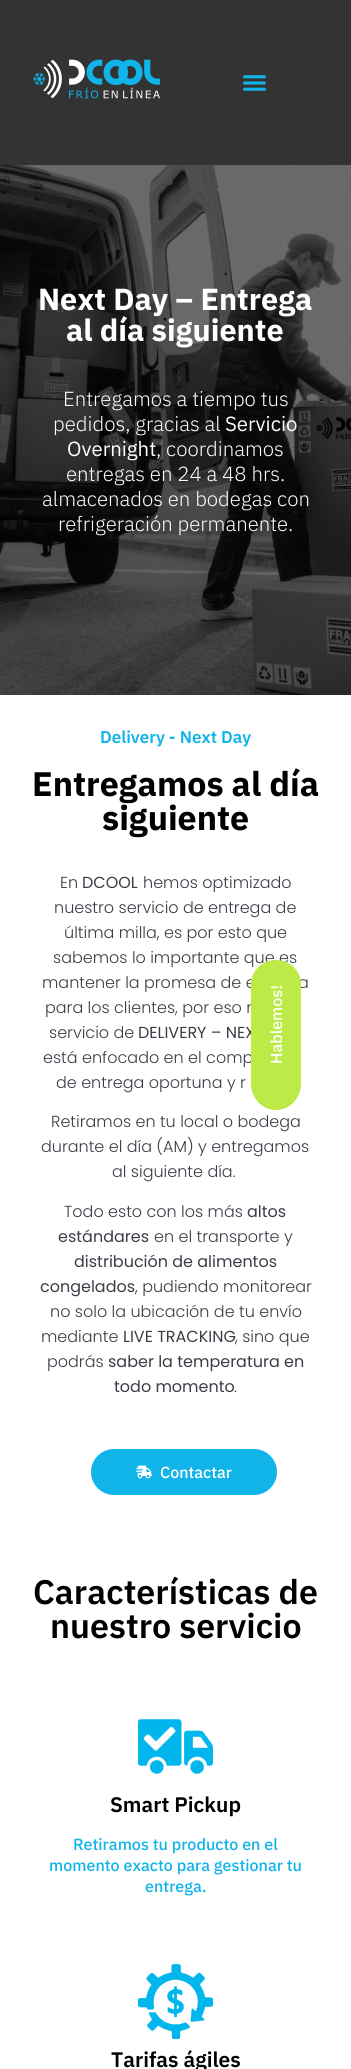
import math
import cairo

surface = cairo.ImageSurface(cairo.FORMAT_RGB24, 351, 2069)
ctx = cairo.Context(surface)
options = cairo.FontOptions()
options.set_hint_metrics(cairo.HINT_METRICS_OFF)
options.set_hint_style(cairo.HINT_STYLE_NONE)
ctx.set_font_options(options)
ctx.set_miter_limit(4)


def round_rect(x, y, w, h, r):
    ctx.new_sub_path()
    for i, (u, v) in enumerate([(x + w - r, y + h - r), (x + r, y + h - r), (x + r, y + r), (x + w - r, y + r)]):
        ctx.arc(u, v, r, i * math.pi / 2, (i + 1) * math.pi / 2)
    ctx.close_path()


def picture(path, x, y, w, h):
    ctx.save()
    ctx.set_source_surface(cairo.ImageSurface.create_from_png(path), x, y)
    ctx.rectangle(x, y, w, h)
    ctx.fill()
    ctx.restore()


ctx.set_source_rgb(1, 1, 1)
ctx.paint()
ctx.set_source_rgb(0.2, 0.2, 0.2)
ctx.rectangle(0, 0, 351, 165)
ctx.fill()
picture("img1.png", 33, 59, 127, 40)
picture("img2.png", 243, 75, 23, 16)
picture("img3.png", 0, 165, 351, 530)
ctx.select_font_face("IBM Plex Sans", cairo.FONT_SLANT_NORMAL, cairo.FONT_WEIGHT_BOLD)
ctx.set_font_size(30.5)
ctx.set_source_rgb(1, 1, 1)
ctx.move_to(38, 310)
ctx.show_text("Next Day – Entrega")
ctx.move_to(66, 341)
ctx.show_text("al día siguiente")
ctx.select_font_face("IBM Plex Sans Light")
ctx.set_font_size(20.4)
ctx.move_to(63, 406)
ctx.show_text("Entregamos a tiempo tus")
ctx.move_to(53, 431)
ctx.show_text("pedidos, gracias al")
ctx.select_font_face("IBM Plex Sans")
ctx.move_to(225, 431)
ctx.show_text("Servicio")
ctx.move_to(67, 456)
ctx.show_text("Overnight")
ctx.select_font_face("IBM Plex Sans Light")
ctx.move_to(156, 456)
ctx.show_text(", coordinamos")
ctx.move_to(66, 481)
ctx.show_text("entregas en 24 a 48 hrs.")
ctx.move_to(42, 506)
ctx.show_text("almacenados en bodegas con")
ctx.move_to(58, 531)
ctx.show_text("refrigeración permanente.")
ctx.select_font_face("IBM Plex Sans SemiBold")
ctx.set_font_size(17)
ctx.set_source_rgb(0.063, 0.706, 0.914)
ctx.move_to(100, 743)
ctx.show_text("Delivery - Next Day")
ctx.select_font_face("IBM Plex Sans", cairo.FONT_SLANT_NORMAL, cairo.FONT_WEIGHT_BOLD)
ctx.set_font_size(34)
ctx.set_source_rgb(0, 0, 0)
ctx.move_to(32, 796)
ctx.show_text("Entregamos al día")
ctx.move_to(102, 830)
ctx.show_text("siguiente")
ctx.select_font_face("Poppins Light")
ctx.set_font_size(16)
ctx.set_source_rgb(0.224, 0.243, 0.275)
ctx.move_to(60, 888)
ctx.show_text("En")
ctx.select_font_face("Poppins")
ctx.move_to(82, 888)
ctx.show_text("DCOOL")
ctx.select_font_face("Poppins Light")
ctx.move_to(143, 888)
ctx.show_text("hemos optimizado")
ctx.move_to(54, 913)
ctx.show_text("nuestro servicio de entrega de")
ctx.move_to(64, 938)
ctx.show_text("última milla, es por esto que")
ctx.move_to(53, 963)
ctx.show_text("sabemos lo importante que es")
ctx.move_to(42, 988)
ctx.show_text("mantener la promesa de e")
ctx.move_to(298, 988)
ctx.show_text("a")
ctx.move_to(45, 1013)
ctx.show_text("para los clientes, por eso n")
ctx.move_to(49, 1038)
ctx.show_text("servicio de")
ctx.select_font_face("Poppins")
ctx.move_to(138, 1038)
ctx.show_text("DELIVERY – NEX")
ctx.select_font_face("Poppins Light")
ctx.move_to(43, 1063)
ctx.show_text("está enfocado en el comp")
ctx.move_to(56, 1088)
ctx.show_text("de entrega oportuna y r")
ctx.move_to(51, 1127)
ctx.show_text("Retiramos en tu local o bodega")
ctx.move_to(41, 1152)
ctx.show_text("durante el día (AM) y entregamos")
ctx.move_to(112, 1177)
ctx.show_text("al siguiente día.")
ctx.move_to(64, 1217)
ctx.show_text("Todo esto con los más")
ctx.select_font_face("Poppins")
ctx.move_to(247, 1217)
ctx.show_text("altos")
ctx.move_to(58, 1242)
ctx.show_text("estándares")
ctx.select_font_face("Poppins Light")
ctx.move_to(154, 1242)
ctx.show_text("en el transporte y")
ctx.select_font_face("Poppins")
ctx.move_to(74, 1267)
ctx.show_text("distribución de alimentos")
ctx.move_to(40, 1292)
ctx.show_text("congelados")
ctx.select_font_face("Poppins Light")
ctx.move_to(135, 1292)
ctx.show_text(", pudiendo monitorear")
ctx.move_to(50, 1317)
ctx.show_text("no solo la ubicación de tu envío")
ctx.move_to(41, 1342)
ctx.show_text("mediante")
ctx.select_font_face("Poppins")
ctx.move_to(123, 1342)
ctx.show_text("LIVE TRACKING")
ctx.select_font_face("Poppins Light")
ctx.move_to(235, 1342)
ctx.show_text(", sino que")
ctx.move_to(47, 1367)
ctx.show_text("podrás")
ctx.select_font_face("Poppins")
ctx.move_to(108, 1367)
ctx.show_text("saber la temperatura en")
ctx.move_to(114, 1392)
ctx.show_text("todo momento")
ctx.select_font_face("Poppins Light")
ctx.move_to(234, 1392)
ctx.show_text(".")
ctx.set_source_rgb(0.063, 0.706, 0.914)
round_rect(91, 1449, 186, 46, 23)
ctx.fill()
picture("img4.png", 136, 1465, 16, 14)
ctx.select_font_face("IBM Plex Sans Medium")
ctx.set_source_rgb(1, 1, 1)
ctx.move_to(160, 1478)
ctx.show_text("Contactar")
ctx.select_font_face("IBM Plex Sans SemiBold")
ctx.set_font_size(34)
ctx.set_source_rgb(0, 0, 0)
ctx.move_to(33, 1604)
ctx.show_text("Características de")
ctx.move_to(50, 1638)
ctx.show_text("nuestro servicio")
picture("img5.png", 138, 1719, 75, 55)
ctx.set_font_size(21)
ctx.move_to(110, 1812)
ctx.show_text("Smart Pickup")
ctx.select_font_face("IBM Plex Sans Medium")
ctx.set_font_size(16.1)
ctx.set_source_rgb(0.063, 0.706, 0.914)
ctx.move_to(73, 1850)
ctx.show_text("Retiramos tu producto en el")
ctx.move_to(49, 1871)
ctx.show_text("momento exacto para gestionar tu")
ctx.move_to(145, 1892)
ctx.show_text("entrega.")
picture("img6.png", 138, 1964, 75, 75)
ctx.select_font_face("IBM Plex Sans SemiBold")
ctx.set_font_size(21)
ctx.set_source_rgb(0, 0, 0)
ctx.move_to(111, 2067)
ctx.show_text("Tarifas ágiles")
ctx.set_source_rgb(0.737, 0.918, 0.282)
ctx.new_path()
ctx.move_to(251, 1084)
ctx.line_to(251, 984)
ctx.curve_to(251, 971, 262, 960, 276, 960)
ctx.curve_to(290, 960, 301, 971, 301, 984)
ctx.line_to(301, 1084)
ctx.curve_to(301, 1098, 290, 1110, 276, 1110)
ctx.curve_to(262, 1110, 251, 1098, 251, 1084)
ctx.close_path()
ctx.fill()
ctx.select_font_face("IBM Plex Sans Medium")
ctx.set_font_size(16)
ctx.set_source_rgb(1, 1, 1)
ctx.save()
ctx.translate(282, 1064)
ctx.rotate(-90 * math.pi / 180)
ctx.move_to(0, 0)
ctx.show_text("Hablemos!")
ctx.restore()
surface.write_to_png("page.png")
